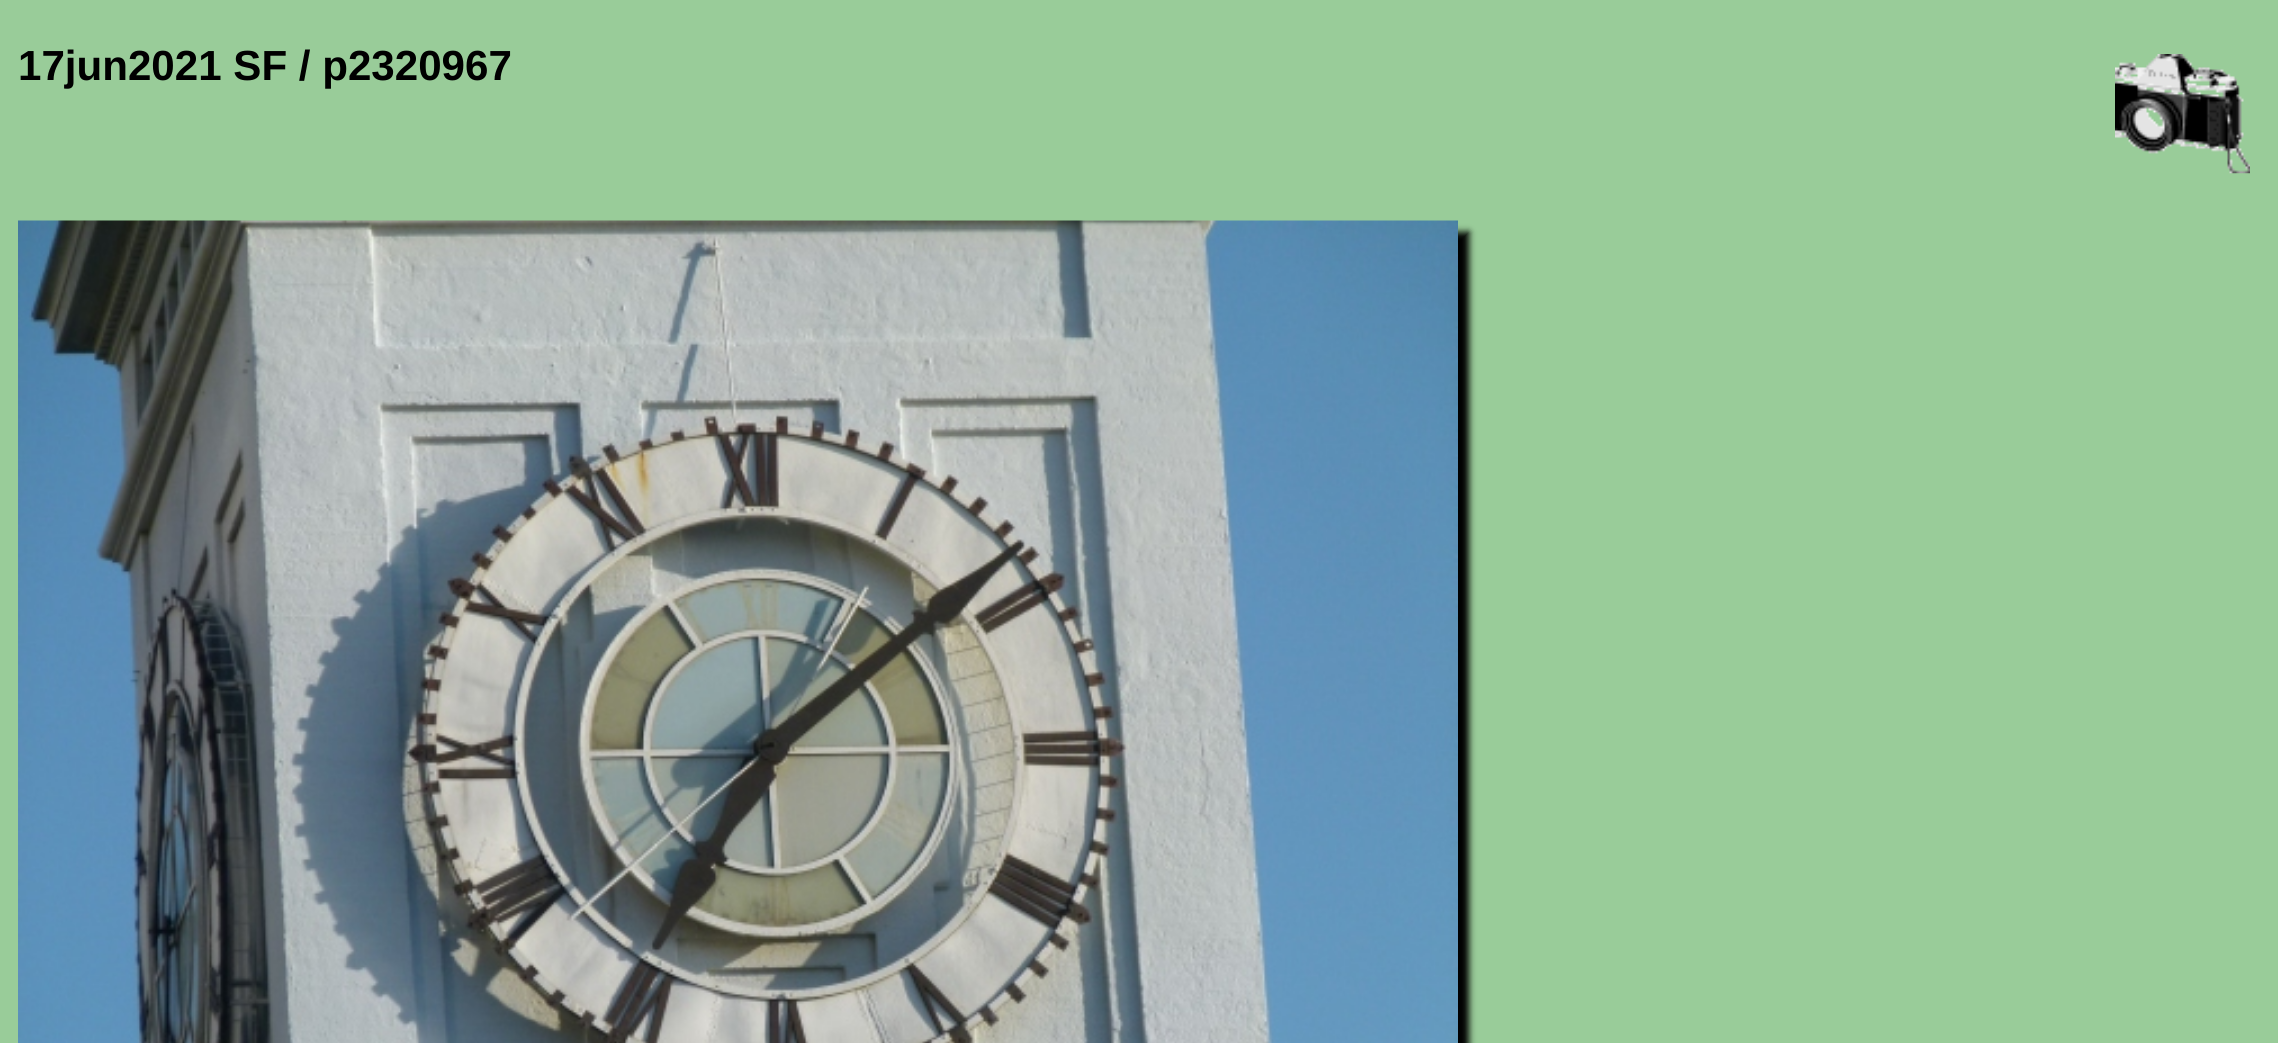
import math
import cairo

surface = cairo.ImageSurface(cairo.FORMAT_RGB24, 2278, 1043)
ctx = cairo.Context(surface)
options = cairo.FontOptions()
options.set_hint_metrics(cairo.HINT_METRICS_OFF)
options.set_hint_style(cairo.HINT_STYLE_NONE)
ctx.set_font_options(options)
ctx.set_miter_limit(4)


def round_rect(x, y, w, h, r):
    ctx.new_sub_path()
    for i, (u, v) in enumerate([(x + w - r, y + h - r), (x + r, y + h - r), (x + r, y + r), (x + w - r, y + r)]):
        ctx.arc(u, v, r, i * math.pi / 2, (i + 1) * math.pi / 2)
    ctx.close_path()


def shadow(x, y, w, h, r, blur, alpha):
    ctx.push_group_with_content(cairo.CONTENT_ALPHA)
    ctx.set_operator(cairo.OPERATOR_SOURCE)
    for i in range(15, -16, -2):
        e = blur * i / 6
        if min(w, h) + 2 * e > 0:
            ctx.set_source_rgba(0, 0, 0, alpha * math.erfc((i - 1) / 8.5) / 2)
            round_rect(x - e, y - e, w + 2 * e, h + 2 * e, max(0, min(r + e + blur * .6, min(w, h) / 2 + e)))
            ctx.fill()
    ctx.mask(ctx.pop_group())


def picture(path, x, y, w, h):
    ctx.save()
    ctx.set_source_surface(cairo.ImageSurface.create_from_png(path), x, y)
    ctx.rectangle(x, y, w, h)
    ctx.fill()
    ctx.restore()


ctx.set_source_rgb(0.6, 0.8, 0.6)
ctx.paint()
ctx.select_font_face("Liberation Sans", cairo.FONT_SLANT_NORMAL, cairo.FONT_WEIGHT_BOLD)
ctx.set_font_size(42.1)
ctx.set_source_rgb(0, 0, 0)
ctx.move_to(18, 80)
ctx.show_text("17jun2021 SF / p2320967")
picture("img1.png", 2115, 54, 135, 120)
ctx.set_source_rgb(0, 0, 0)
shadow(29, 232, 1440, 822, 0, 3.5, 1)
picture("img2.png", 18, 220, 1440, 823)
surface.write_to_png("page.png")
